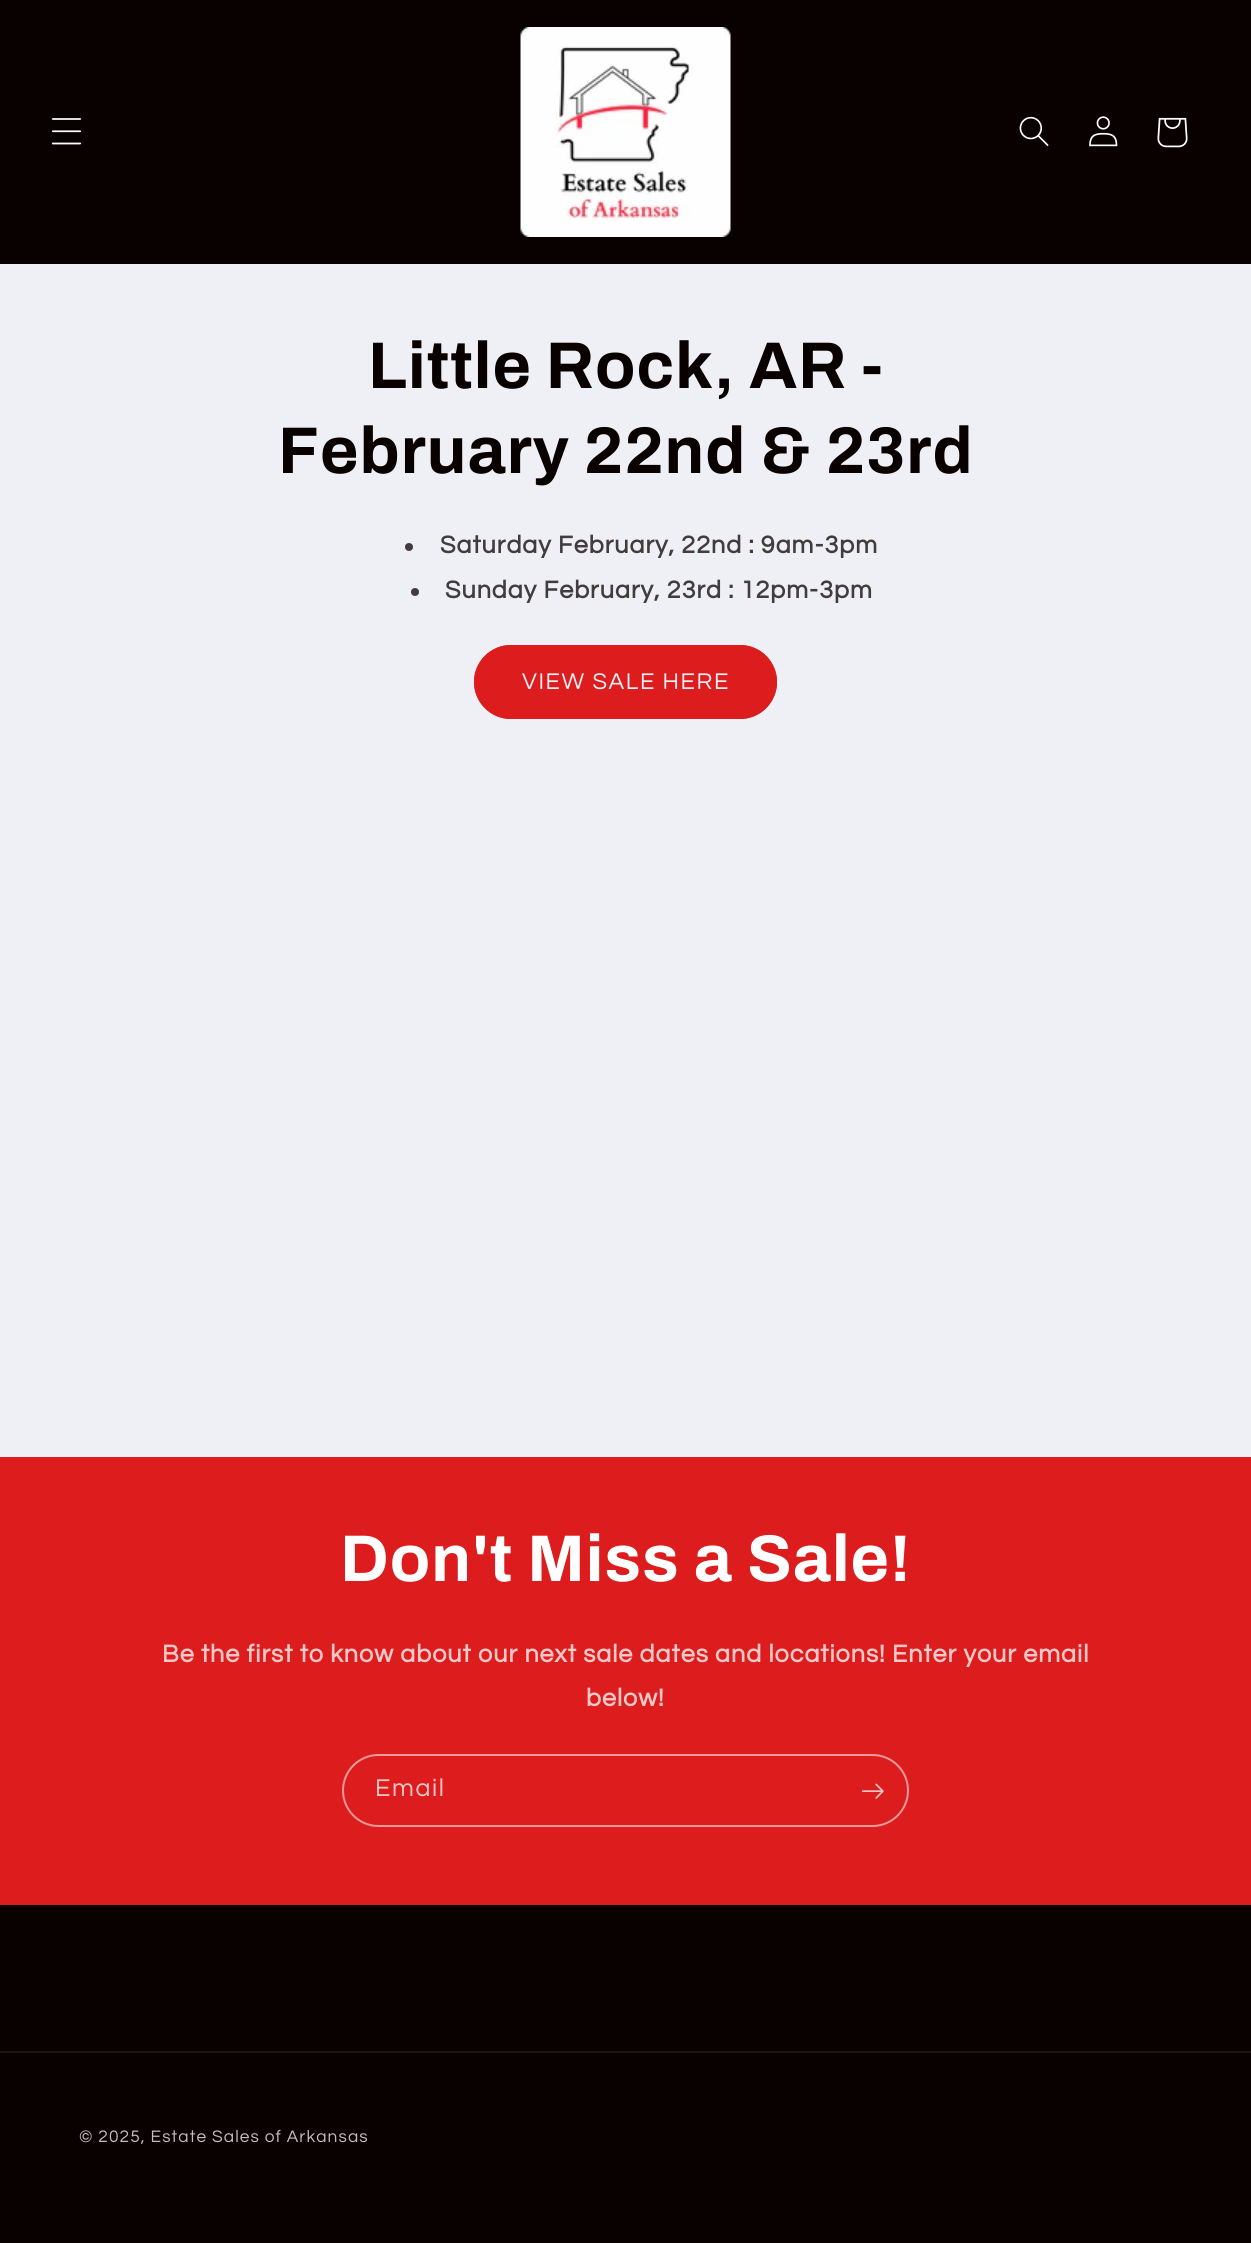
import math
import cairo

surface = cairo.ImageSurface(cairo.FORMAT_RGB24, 1251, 2243)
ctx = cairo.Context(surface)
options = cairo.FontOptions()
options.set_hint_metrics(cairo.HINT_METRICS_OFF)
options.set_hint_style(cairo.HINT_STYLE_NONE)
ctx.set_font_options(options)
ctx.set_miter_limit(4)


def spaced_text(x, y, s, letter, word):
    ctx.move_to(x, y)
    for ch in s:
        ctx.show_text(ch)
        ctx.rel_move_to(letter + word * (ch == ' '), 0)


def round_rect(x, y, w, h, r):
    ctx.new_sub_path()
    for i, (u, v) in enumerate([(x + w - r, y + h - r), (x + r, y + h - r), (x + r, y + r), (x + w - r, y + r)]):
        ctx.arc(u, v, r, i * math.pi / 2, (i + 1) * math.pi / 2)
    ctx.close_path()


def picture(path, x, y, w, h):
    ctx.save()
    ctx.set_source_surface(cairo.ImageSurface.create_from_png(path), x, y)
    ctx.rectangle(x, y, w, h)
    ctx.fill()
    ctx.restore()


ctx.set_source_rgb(0.937, 0.941, 0.961)
ctx.paint()
ctx.set_source_rgb(0.039, 0, 0)
ctx.rectangle(0, 0, 1251, 264)
ctx.fill()
picture("img1.png", 51, 118, 31, 27)
picture("img2.png", 520, 27, 211, 210)
picture("img3.png", 1019, 116, 30, 30)
picture("img4.png", 1089, 116, 29, 31)
picture("img5.png", 1157, 117, 31, 31)
ctx.select_font_face("Archivo", cairo.FONT_SLANT_NORMAL, cairo.FONT_WEIGHT_BOLD)
ctx.set_font_size(66)
spaced_text(368, 388, "Little Rock, AR -", 1, 0)
spaced_text(278, 473, "February 22nd & 23rd", 1, 0)
ctx.set_source_rgb(0.263, 0.235, 0.239)
ctx.new_path()
ctx.arc(409, 547, 4, 0, 2 * math.pi)
ctx.fill()
ctx.select_font_face("Questrial", cairo.FONT_SLANT_NORMAL, cairo.FONT_WEIGHT_BOLD)
ctx.set_font_size(25.2)
spaced_text(440, 553, "Saturday February, 22nd : 9am-3pm", 0.95, 0)
ctx.new_path()
ctx.arc(415, 592, 4, 0, 2 * math.pi)
ctx.fill()
spaced_text(445, 598, "Sunday February, 23rd : 12pm-3pm", 0.95, 0)
ctx.set_source_rgb(0.867, 0.114, 0.114)
round_rect(474, 645, 303, 74, 37)
ctx.fill()
round_rect(475, 646, 301, 72, 36)
ctx.stroke()
ctx.select_font_face("Questrial")
ctx.set_font_size(23.6)
ctx.set_source_rgb(0.937, 0.941, 0.961)
spaced_text(522, 689, "VIEW SALE HERE", 1.6, 0)
ctx.set_source_rgb(0.867, 0.114, 0.114)
ctx.rectangle(0, 1457, 1251, 448)
ctx.fill()
ctx.select_font_face("Archivo", cairo.FONT_SLANT_NORMAL, cairo.FONT_WEIGHT_BOLD)
ctx.set_font_size(66)
ctx.set_source_rgb(1, 1, 1)
spaced_text(340, 1581, "Don't Miss a Sale!", 1, 0)
ctx.select_font_face("Questrial", cairo.FONT_SLANT_NORMAL, cairo.FONT_WEIGHT_BOLD)
ctx.set_font_size(25.2)
ctx.set_source_rgb(0.969, 0.78, 0.78)
spaced_text(162, 1662, "Be the first to know about our next sale dates and locations! Enter your email", 0.95, 0)
spaced_text(586, 1706, "below!", 0.95, 0)
round_rect(343, 1755, 565, 71, 35.5)
ctx.set_source_rgb(0.941, 0.6, 0.6)
ctx.stroke()
ctx.select_font_face("Questrial")
ctx.set_source_rgb(0.969, 0.78, 0.78)
spaced_text(375, 1796, "Email", 1.6, 0)
picture("img6.png", 861, 1783, 23, 16)
ctx.set_source_rgb(0.039, 0, 0)
ctx.rectangle(0, 1905, 1251, 338)
ctx.fill()
ctx.set_source_rgb(0.118, 0.078, 0.078)
ctx.rectangle(0, 2051, 1251, 2)
ctx.fill()
ctx.set_font_size(17.3)
ctx.set_source_rgb(0.761, 0.749, 0.749)
spaced_text(79, 2142, "© 2025, Estate Sales of Arkansas", 1.1, 0)
surface.write_to_png("page.png")
